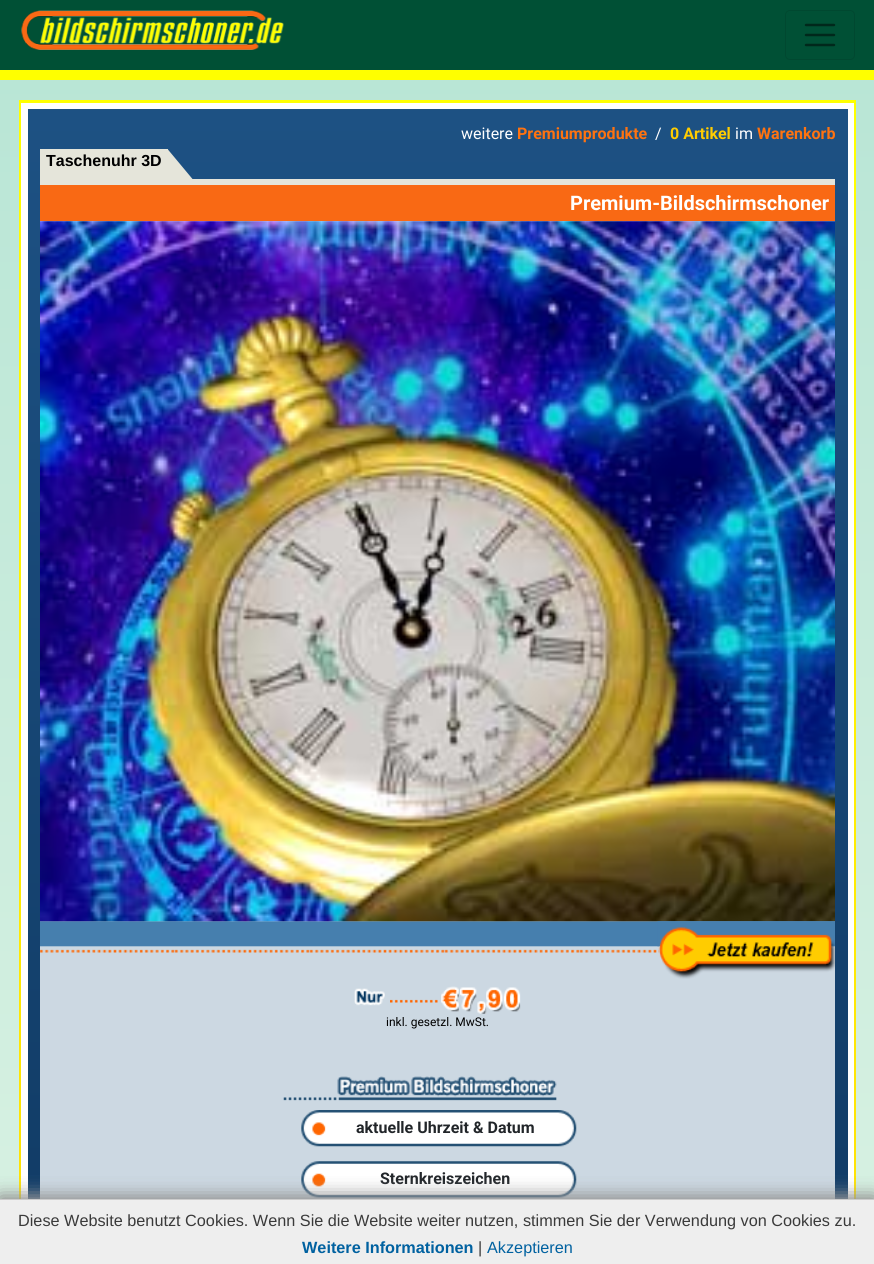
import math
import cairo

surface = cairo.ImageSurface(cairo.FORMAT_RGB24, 874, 1264)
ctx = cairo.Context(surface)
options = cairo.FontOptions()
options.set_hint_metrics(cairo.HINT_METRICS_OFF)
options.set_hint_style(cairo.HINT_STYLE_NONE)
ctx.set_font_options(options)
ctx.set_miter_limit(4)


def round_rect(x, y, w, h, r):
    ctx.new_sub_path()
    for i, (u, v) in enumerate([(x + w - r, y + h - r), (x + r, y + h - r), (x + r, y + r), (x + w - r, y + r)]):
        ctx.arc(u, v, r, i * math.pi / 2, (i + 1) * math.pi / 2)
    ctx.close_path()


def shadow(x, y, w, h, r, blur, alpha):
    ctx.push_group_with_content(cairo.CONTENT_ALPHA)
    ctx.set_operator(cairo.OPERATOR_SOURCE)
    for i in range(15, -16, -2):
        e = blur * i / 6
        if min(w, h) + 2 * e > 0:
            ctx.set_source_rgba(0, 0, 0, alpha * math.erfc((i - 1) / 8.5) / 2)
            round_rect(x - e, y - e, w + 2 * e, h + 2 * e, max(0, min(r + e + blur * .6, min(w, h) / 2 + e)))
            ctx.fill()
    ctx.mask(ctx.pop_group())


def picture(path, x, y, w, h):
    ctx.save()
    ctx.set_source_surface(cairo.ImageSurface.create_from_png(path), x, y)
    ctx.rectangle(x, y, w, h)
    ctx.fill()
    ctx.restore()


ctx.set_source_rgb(1, 1, 1)
ctx.paint()
gradient = cairo.LinearGradient(437, 0, 438, 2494)
gradient.add_color_stop_rgba(0, 0.718, 0.898, 0.835, 1)
gradient.add_color_stop_rgba(1, 0.969, 0.992, 0.937, 1)
ctx.set_source(gradient)
ctx.rectangle(0, 80, 874, 1119)
ctx.fill()
ctx.set_source_rgb(0, 0.314, 0.208)
ctx.rectangle(0, 0, 874, 70)
ctx.fill()
ctx.set_source_rgb(1, 1, 0)
ctx.rectangle(0, 70, 874, 10)
ctx.fill()
picture("img1.png", 21, 10, 263, 40)
round_rect(785.5, 10.5, 69, 49, 4.5)
ctx.set_source_rgb(0, 0.282, 0.188)
ctx.set_line_width(1)
ctx.stroke()
ctx.new_path()
ctx.move_to(806, 25)
ctx.line_to(834, 25)
ctx.move_to(806, 35)
ctx.line_to(834, 35)
ctx.move_to(806, 45)
ctx.line_to(834, 45)
ctx.set_source_rgb(0, 0.157, 0.106)
ctx.set_line_width(2.5)
ctx.set_line_cap(cairo.LINE_CAP_ROUND)
ctx.stroke()
gradient = cairo.LinearGradient(437, 100, 438, 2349)
gradient.add_color_stop_rgba(0, 1, 1, 0, 1)
gradient.add_color_stop_rgba(1, 1, 0.769, 0.039, 1)
ctx.set_source(gradient)
ctx.rectangle(19, 100, 837, 1099)
ctx.fill()
ctx.set_source_rgb(1, 1, 1)
ctx.rectangle(21, 103, 833, 1096)
ctx.fill()
gradient = cairo.LinearGradient(437, 109, 438, 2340)
gradient.add_color_stop_rgba(0, 0.114, 0.318, 0.514, 1)
gradient.add_color_stop_rgba(1, 0.02, 0.153, 0.29, 1)
ctx.set_source(gradient)
ctx.rectangle(28, 109, 820, 1090)
ctx.fill()
ctx.select_font_face("Roboto")
ctx.set_font_size(16)
ctx.set_source_rgb(1, 1, 1)
ctx.move_to(461, 139)
ctx.show_text("weitere")
ctx.select_font_face("Roboto", cairo.FONT_SLANT_NORMAL, cairo.FONT_WEIGHT_BOLD)
ctx.set_source_rgb(1, 0.451, 0.063)
ctx.move_to(517, 139)
ctx.show_text("Premiumprodukte")
ctx.select_font_face("Roboto")
ctx.set_source_rgb(1, 1, 1)
ctx.move_to(655, 139)
ctx.show_text("/")
ctx.select_font_face("Roboto", cairo.FONT_SLANT_NORMAL, cairo.FONT_WEIGHT_BOLD)
ctx.set_source_rgb(1, 0.8, 0)
ctx.move_to(670, 139)
ctx.show_text("0 Artikel")
ctx.select_font_face("Roboto")
ctx.set_source_rgb(1, 1, 1)
ctx.move_to(735, 139)
ctx.show_text("im")
ctx.select_font_face("Roboto", cairo.FONT_SLANT_NORMAL, cairo.FONT_WEIGHT_BOLD)
ctx.set_source_rgb(1, 0.451, 0.063)
ctx.move_to(757, 139)
ctx.show_text("Warenkorb")
ctx.set_source_rgb(0.898, 0.898, 0.855)
ctx.rectangle(40, 149, 128, 30)
ctx.fill()
ctx.select_font_face("Liberation Sans", cairo.FONT_SLANT_NORMAL, cairo.FONT_WEIGHT_BOLD)
ctx.set_source_rgb(0, 0, 0)
ctx.move_to(46, 166)
ctx.show_text("Taschenuhr 3D")
ctx.set_source_rgb(0.898, 0.898, 0.855)
ctx.new_path()
ctx.move_to(167.5, 179)
ctx.line_to(167.5, 149)
ctx.line_to(192.5, 179)
ctx.close_path()
ctx.fill()
ctx.set_source_rgb(0.976, 0.412, 0.082)
ctx.rectangle(40, 185, 795, 36)
ctx.fill()
ctx.set_source_rgb(0.898, 0.898, 0.855)
ctx.rectangle(40, 179, 795, 6)
ctx.fill()
ctx.select_font_face("Roboto", cairo.FONT_SLANT_NORMAL, cairo.FONT_WEIGHT_BOLD)
ctx.set_font_size(20)
ctx.set_source_rgb(1, 1, 1)
ctx.move_to(570, 210)
ctx.show_text("Premium-Bildschirmschoner")
ctx.set_source_rgb(0.8, 0.847, 0.886)
ctx.rectangle(40, 221, 795, 978)
ctx.fill()
picture("img3.png", 40, 921, 795, 32)
picture("img2.png", 40, 221, 795, 701)
picture("img4.png", 657, 921, 178, 58)
picture("img5.png", 354, 988, 31, 18)
picture("img6.png", 390, 999, 48, 4)
picture("img7.png", 441, 986, 18, 26)
picture("img8.png", 460, 987, 17, 25)
picture("img9.png", 477, 1001, 10, 13)
picture("img10.png", 486, 987, 17, 25)
picture("img11.png", 503, 987, 18, 25)
ctx.select_font_face("Roboto")
ctx.set_font_size(12)
ctx.set_source_rgb(0, 0, 0)
ctx.move_to(386, 1026)
ctx.show_text("inkl. gesetzl. MwSt.")
picture("img12.png", 283, 1076, 274, 25)
picture("img13.png", 301, 1110, 276, 37)
ctx.select_font_face("Roboto", cairo.FONT_SLANT_NORMAL, cairo.FONT_WEIGHT_BOLD)
ctx.set_font_size(16)
ctx.set_source_rgb(0.129, 0.145, 0.161)
ctx.move_to(356, 1133)
ctx.show_text("aktuelle Uhrzeit & Datum")
picture("img14.png", 301, 1161, 276, 37)
ctx.move_to(380, 1184)
ctx.show_text("Sternkreiszeichen")
ctx.set_source_rgb(0.588, 0.588, 0.588)
shadow(0, 1199, 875, 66, 0, 9.5, 1)
shadow(0, 1199, 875, 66, 0, 9.5, 1)
ctx.set_source_rgb(0.933, 0.933, 0.933)
ctx.rectangle(0, 1200, 874, 64)
ctx.fill()
ctx.set_source_rgb(0.8, 0.8, 0.8)
ctx.rectangle(0, 1199, 874, 1)
ctx.fill()
ctx.select_font_face("Liberation Sans")
ctx.set_font_size(16.25)
ctx.set_source_rgb(0.227, 0.227, 0.227)
ctx.move_to(18, 1226)
ctx.show_text("Diese Website benutzt Cookies. Wenn Sie die Website weiter nutzen, stimmen Sie der Verwendung von Cookies zu.")
ctx.select_font_face("Liberation Sans", cairo.FONT_SLANT_NORMAL, cairo.FONT_WEIGHT_BOLD)
ctx.set_source_rgb(0, 0.38, 0.627)
ctx.move_to(302, 1253)
ctx.show_text("Weitere Informationen")
ctx.select_font_face("Liberation Sans")
ctx.set_source_rgb(0.227, 0.227, 0.227)
ctx.move_to(478, 1253)
ctx.show_text("|")
ctx.set_source_rgb(0, 0.38, 0.627)
ctx.move_to(487, 1253)
ctx.show_text("Akzeptieren")
surface.write_to_png("page.png")
